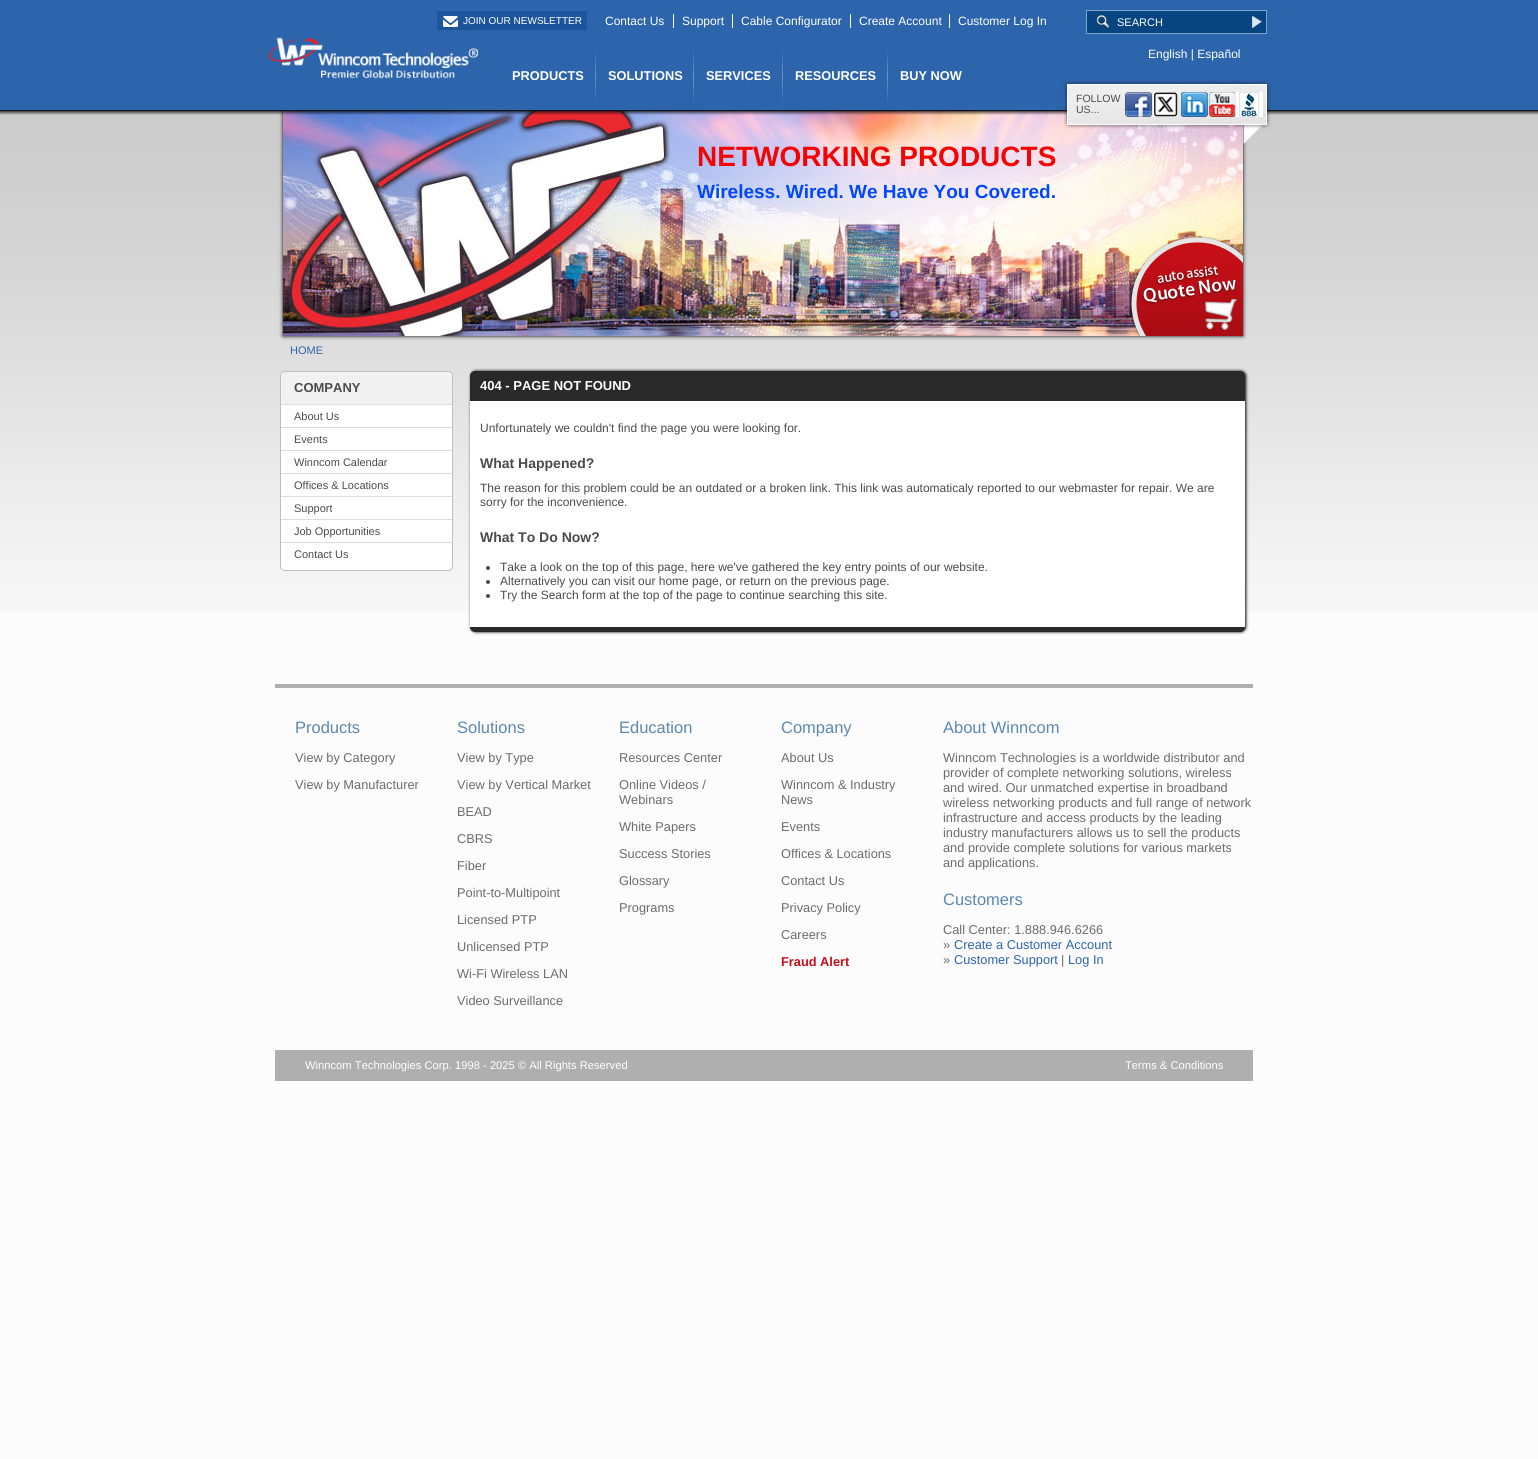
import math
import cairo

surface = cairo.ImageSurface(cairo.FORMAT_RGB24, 1538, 1459)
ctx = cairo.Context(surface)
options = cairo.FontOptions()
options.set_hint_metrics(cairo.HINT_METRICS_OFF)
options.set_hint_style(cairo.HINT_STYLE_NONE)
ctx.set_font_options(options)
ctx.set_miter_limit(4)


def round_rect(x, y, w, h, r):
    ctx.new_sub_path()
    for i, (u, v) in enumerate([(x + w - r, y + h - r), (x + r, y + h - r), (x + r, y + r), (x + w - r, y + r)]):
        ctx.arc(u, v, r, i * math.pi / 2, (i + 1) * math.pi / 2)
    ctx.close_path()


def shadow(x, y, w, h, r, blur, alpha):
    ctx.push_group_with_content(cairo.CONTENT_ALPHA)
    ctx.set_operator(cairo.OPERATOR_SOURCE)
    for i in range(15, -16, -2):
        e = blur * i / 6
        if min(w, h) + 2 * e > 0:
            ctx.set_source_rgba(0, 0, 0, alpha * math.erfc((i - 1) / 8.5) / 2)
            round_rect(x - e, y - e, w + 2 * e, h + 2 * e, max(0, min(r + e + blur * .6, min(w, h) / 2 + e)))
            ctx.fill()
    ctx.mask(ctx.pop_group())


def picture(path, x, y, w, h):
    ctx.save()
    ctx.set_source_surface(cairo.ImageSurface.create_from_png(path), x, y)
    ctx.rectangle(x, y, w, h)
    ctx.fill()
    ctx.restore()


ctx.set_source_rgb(0.988, 0.988, 0.988)
ctx.paint()
picture("img1.png", 0, 0, 1538, 612)
ctx.set_source_rgb(0, 0, 0)
shadow(283, 111, 960, 225, 0, 2, 1)
ctx.set_source_rgb(0.173, 0.396, 0.675)
ctx.rectangle(0, 97, 1538, 14)
ctx.fill()
ctx.set_source_rgb(0.11, 0.333, 0.608)
ctx.rectangle(437, 11, 150, 19)
ctx.fill()
picture("img2.png", 443, 16, 15, 11)
ctx.select_font_face("Liberation Sans")
ctx.set_font_size(10)
ctx.set_source_rgb(1, 1, 1)
ctx.move_to(463, 24)
ctx.show_text("JOIN OUR NEWSLETTER")
ctx.rectangle(673, 14, 1, 14)
ctx.fill()
ctx.set_font_size(12)
ctx.move_to(605, 25)
ctx.show_text("Contact Us")
ctx.rectangle(732, 14, 1, 14)
ctx.fill()
ctx.move_to(682, 25)
ctx.show_text("Support")
ctx.rectangle(850, 14, 1, 14)
ctx.fill()
ctx.move_to(741, 25)
ctx.show_text("Cable Configurator")
ctx.rectangle(949, 14, 1, 14)
ctx.fill()
ctx.move_to(859, 25)
ctx.show_text("Create Account")
ctx.move_to(958, 25)
ctx.show_text("Customer Log In")
ctx.set_source_rgb(0.024, 0.271, 0.502)
ctx.rectangle(1087, 28, 160, 5)
ctx.fill()
picture("img3.png", 1087, 11, 160, 17)
ctx.set_source_rgb(0.502, 0.639, 0.804)
ctx.rectangle(1086, 10, 161, 1)
ctx.fill()
ctx.rectangle(1086, 33, 161, 1)
ctx.fill()
ctx.rectangle(1086, 10, 1, 24)
ctx.fill()
ctx.set_font_size(11)
ctx.set_source_rgb(1, 1, 1)
ctx.move_to(1117, 26)
ctx.show_text("SEARCH")
picture("img4.png", 1247, 10, 20, 24)
picture("img5.png", 268, 37, 210, 42)
ctx.set_font_size(12)
ctx.move_to(1148, 58)
ctx.show_text("English | Español")
picture("img6.png", 595, 49, 1, 53)
ctx.select_font_face("Liberation Sans", cairo.FONT_SLANT_NORMAL, cairo.FONT_WEIGHT_BOLD)
ctx.set_font_size(12.8)
ctx.move_to(512, 80)
ctx.show_text("PRODUCTS")
picture("img6.png", 693, 49, 1, 53)
ctx.move_to(608, 80)
ctx.show_text("SOLUTIONS")
picture("img6.png", 782, 49, 1, 53)
ctx.move_to(706, 80)
ctx.show_text("SERVICES")
picture("img6.png", 887, 49, 1, 53)
ctx.move_to(795, 80)
ctx.show_text("RESOURCES")
ctx.move_to(900, 80)
ctx.show_text("BUY NOW")
picture("img14.png", 283, 111, 960, 225)
picture("img13.png", 0, 110, 1538, 5)
picture("img7.png", 1063, 80, 208, 64)
ctx.select_font_face("Liberation Sans")
ctx.set_font_size(10.5)
ctx.set_source_rgb(0.294, 0.294, 0.294)
ctx.move_to(1076, 102)
ctx.show_text("FOLLOW")
ctx.move_to(1076, 113)
ctx.show_text("US...")
picture("img8.png", 1125, 92, 27, 25)
picture("img9.png", 1153, 92, 25, 25)
picture("img10.png", 1181, 92, 27, 25)
picture("img11.png", 1209, 92, 26, 25)
picture("img12.png", 1236, 92, 27, 25)
ctx.select_font_face("Liberation Sans", cairo.FONT_SLANT_NORMAL, cairo.FONT_WEIGHT_BOLD)
ctx.set_font_size(28)
ctx.set_source_rgb(0.953, 0.012, 0.012)
ctx.move_to(697, 166)
ctx.show_text("NETWORKING PRODUCTS")
ctx.set_font_size(19)
ctx.set_source_rgb(0.004, 0.282, 0.984)
ctx.move_to(697, 198)
ctx.show_text("Wireless. Wired. We Have You Covered.")
picture("img15.png", 1130, 235, 113, 101)
ctx.select_font_face("Liberation Sans")
ctx.set_font_size(11)
ctx.set_source_rgb(0.173, 0.396, 0.675)
ctx.move_to(290, 354)
ctx.show_text("HOME")
ctx.set_source_rgb(1, 1, 1)
round_rect(280.5, 371.5, 172, 199, 4.5)
ctx.fill_preserve()
ctx.set_source_rgb(0.749, 0.749, 0.749)
ctx.set_line_width(1)
ctx.stroke()
ctx.set_source_rgb(0.945, 0.945, 0.945)
ctx.new_path()
ctx.move_to(286, 372)
ctx.line_to(447, 372)
ctx.curve_to(450, 372, 452, 374, 452, 377)
ctx.line_to(452, 404)
ctx.line_to(281, 404)
ctx.line_to(281, 377)
ctx.curve_to(281, 374, 283, 372, 286, 372)
ctx.close_path()
ctx.fill()
ctx.select_font_face("Liberation Sans", cairo.FONT_SLANT_NORMAL, cairo.FONT_WEIGHT_BOLD)
ctx.set_font_size(13)
ctx.set_source_rgb(0.294, 0.294, 0.294)
ctx.move_to(294, 392)
ctx.show_text("COMPANY")
ctx.set_source_rgb(0.863, 0.863, 0.863)
ctx.rectangle(281, 404, 171, 1)
ctx.fill()
ctx.select_font_face("Liberation Sans")
ctx.set_font_size(11)
ctx.set_source_rgb(0.294, 0.294, 0.294)
ctx.move_to(294, 420)
ctx.show_text("About Us")
ctx.set_source_rgb(0.863, 0.863, 0.863)
ctx.rectangle(281, 427, 171, 1)
ctx.fill()
ctx.set_source_rgb(0.294, 0.294, 0.294)
ctx.move_to(294, 443)
ctx.show_text("Events")
ctx.set_source_rgb(0.863, 0.863, 0.863)
ctx.rectangle(281, 450, 171, 1)
ctx.fill()
ctx.set_source_rgb(0.294, 0.294, 0.294)
ctx.move_to(294, 466)
ctx.show_text("Winncom Calendar")
ctx.set_source_rgb(0.863, 0.863, 0.863)
ctx.rectangle(281, 473, 171, 1)
ctx.fill()
ctx.set_source_rgb(0.294, 0.294, 0.294)
ctx.move_to(294, 489)
ctx.show_text("Offices & Locations")
ctx.set_source_rgb(0.863, 0.863, 0.863)
ctx.rectangle(281, 496, 171, 1)
ctx.fill()
ctx.set_source_rgb(0.294, 0.294, 0.294)
ctx.move_to(294, 512)
ctx.show_text("Support")
ctx.set_source_rgb(0.863, 0.863, 0.863)
ctx.rectangle(281, 519, 171, 1)
ctx.fill()
ctx.set_source_rgb(0.294, 0.294, 0.294)
ctx.move_to(294, 535)
ctx.show_text("Job Opportunities")
ctx.set_source_rgb(0.863, 0.863, 0.863)
ctx.rectangle(281, 542, 171, 1)
ctx.fill()
ctx.set_source_rgb(0.294, 0.294, 0.294)
ctx.move_to(294, 558)
ctx.show_text("Contact Us")
ctx.set_source_rgb(0, 0, 0)
shadow(471, 371, 775, 261, 5, 1.5, 1)
ctx.set_source_rgb(0.161, 0.161, 0.161)
round_rect(470, 371, 775, 261, 5)
ctx.fill()
ctx.select_font_face("Liberation Sans", cairo.FONT_SLANT_NORMAL, cairo.FONT_WEIGHT_BOLD)
ctx.set_font_size(13)
ctx.set_source_rgb(1, 1, 1)
ctx.move_to(480, 390)
ctx.show_text("404 - PAGE NOT FOUND")
ctx.rectangle(470, 401, 775, 226)
ctx.fill()
ctx.select_font_face("Liberation Sans")
ctx.set_font_size(12)
ctx.set_source_rgb(0.294, 0.294, 0.294)
ctx.move_to(480, 432)
ctx.show_text("Unfortunately we couldn't find the page you were looking for.")
ctx.select_font_face("Liberation Sans", cairo.FONT_SLANT_NORMAL, cairo.FONT_WEIGHT_BOLD)
ctx.set_font_size(14)
ctx.move_to(480, 468)
ctx.show_text("What Happened?")
ctx.select_font_face("Liberation Sans")
ctx.set_font_size(12)
ctx.move_to(480, 492)
ctx.show_text("The reason for this problem could be an outdated or a broken link. This link was automaticaly reported to our webmaster for repair. We are")
ctx.move_to(480, 506)
ctx.show_text("sorry for the inconvenience.")
ctx.select_font_face("Liberation Sans", cairo.FONT_SLANT_NORMAL, cairo.FONT_WEIGHT_BOLD)
ctx.set_font_size(14)
ctx.move_to(480, 542)
ctx.show_text("What To Do Now?")
ctx.new_path()
ctx.arc(488, 568, 2, 0, 2 * math.pi)
ctx.fill()
ctx.select_font_face("Liberation Sans")
ctx.set_font_size(12)
ctx.move_to(500, 571)
ctx.show_text("Take a look on the top of this page, here we've gathered the key entry points of our website.")
ctx.new_path()
ctx.arc(488, 582, 2, 0, 2 * math.pi)
ctx.fill()
ctx.move_to(500, 585)
ctx.show_text("Alternatively you can visit our home page, or return on the previous page.")
ctx.new_path()
ctx.arc(488, 596, 2, 0, 2 * math.pi)
ctx.fill()
ctx.move_to(500, 599)
ctx.show_text("Try the Search form at the top of the page to continue searching this site.")
ctx.set_source_rgb(0.686, 0.686, 0.686)
ctx.rectangle(275, 684, 978, 4)
ctx.fill()
ctx.set_font_size(16.5)
ctx.set_source_rgb(0.361, 0.533, 0.69)
ctx.move_to(295, 733)
ctx.show_text("Products")
ctx.set_font_size(12.8)
ctx.set_source_rgb(0.424, 0.424, 0.424)
ctx.move_to(295, 762)
ctx.show_text("View by Category")
ctx.move_to(295, 789)
ctx.show_text("View by Manufacturer")
ctx.set_font_size(16.5)
ctx.set_source_rgb(0.361, 0.533, 0.69)
ctx.move_to(457, 733)
ctx.show_text("Solutions")
ctx.set_font_size(12.8)
ctx.set_source_rgb(0.424, 0.424, 0.424)
ctx.move_to(457, 762)
ctx.show_text("View by Type")
ctx.move_to(457, 789)
ctx.show_text("View by Vertical Market")
ctx.move_to(457, 816)
ctx.show_text("BEAD")
ctx.move_to(457, 843)
ctx.show_text("CBRS")
ctx.move_to(457, 870)
ctx.show_text("Fiber")
ctx.move_to(457, 897)
ctx.show_text("Point-to-Multipoint")
ctx.move_to(457, 924)
ctx.show_text("Licensed PTP")
ctx.move_to(457, 951)
ctx.show_text("Unlicensed PTP")
ctx.move_to(457, 978)
ctx.show_text("Wi-Fi Wireless LAN")
ctx.move_to(457, 1005)
ctx.show_text("Video Surveillance")
ctx.set_font_size(16.5)
ctx.set_source_rgb(0.361, 0.533, 0.69)
ctx.move_to(619, 733)
ctx.show_text("Education")
ctx.set_font_size(12.8)
ctx.set_source_rgb(0.424, 0.424, 0.424)
ctx.move_to(619, 762)
ctx.show_text("Resources Center")
ctx.move_to(619, 789)
ctx.show_text("Online Videos /")
ctx.move_to(619, 804)
ctx.show_text("Webinars")
ctx.move_to(619, 831)
ctx.show_text("White Papers")
ctx.move_to(619, 858)
ctx.show_text("Success Stories")
ctx.move_to(619, 885)
ctx.show_text("Glossary")
ctx.move_to(619, 912)
ctx.show_text("Programs")
ctx.set_font_size(16.5)
ctx.set_source_rgb(0.361, 0.533, 0.69)
ctx.move_to(781, 733)
ctx.show_text("Company")
ctx.set_font_size(12.8)
ctx.set_source_rgb(0.424, 0.424, 0.424)
ctx.move_to(781, 762)
ctx.show_text("About Us")
ctx.move_to(781, 789)
ctx.show_text("Winncom & Industry")
ctx.move_to(781, 804)
ctx.show_text("News")
ctx.move_to(781, 831)
ctx.show_text("Events")
ctx.move_to(781, 858)
ctx.show_text("Offices & Locations")
ctx.move_to(781, 885)
ctx.show_text("Contact Us")
ctx.move_to(781, 912)
ctx.show_text("Privacy Policy")
ctx.move_to(781, 939)
ctx.show_text("Careers")
ctx.select_font_face("Liberation Sans", cairo.FONT_SLANT_NORMAL, cairo.FONT_WEIGHT_BOLD)
ctx.set_source_rgb(0.784, 0.055, 0.09)
ctx.move_to(781, 966)
ctx.show_text("Fraud Alert")
ctx.select_font_face("Liberation Sans")
ctx.set_font_size(16.5)
ctx.set_source_rgb(0.361, 0.533, 0.69)
ctx.move_to(943, 733)
ctx.show_text("About Winncom")
ctx.set_font_size(12.8)
ctx.set_source_rgb(0.424, 0.424, 0.424)
ctx.move_to(943, 762)
ctx.show_text("Winncom Technologies is a worldwide distributor and")
ctx.move_to(943, 777)
ctx.show_text("provider of complete networking solutions, wireless")
ctx.move_to(943, 792)
ctx.show_text("and wired. Our unmatched expertise in broadband")
ctx.move_to(943, 807)
ctx.show_text("wireless networking products and full range of network")
ctx.move_to(943, 822)
ctx.show_text("infrastructure and access products by the leading")
ctx.move_to(943, 837)
ctx.show_text("industry manufacturers allows us to sell the products")
ctx.move_to(943, 852)
ctx.show_text("and provide complete solutions for various markets")
ctx.move_to(943, 867)
ctx.show_text("and applications.")
ctx.set_font_size(16.5)
ctx.set_source_rgb(0.361, 0.533, 0.69)
ctx.move_to(943, 905)
ctx.show_text("Customers")
ctx.set_font_size(12.8)
ctx.set_source_rgb(0.424, 0.424, 0.424)
ctx.move_to(943, 934)
ctx.show_text("Call Center: 1.888.946.6266")
ctx.move_to(943, 949)
ctx.show_text("»")
ctx.set_source_rgb(0.173, 0.396, 0.675)
ctx.move_to(954, 949)
ctx.show_text("Create a Customer Account")
ctx.set_source_rgb(0.424, 0.424, 0.424)
ctx.move_to(943, 964)
ctx.show_text("»")
ctx.set_source_rgb(0.173, 0.396, 0.675)
ctx.move_to(954, 964)
ctx.show_text("Customer Support")
ctx.set_source_rgb(0.424, 0.424, 0.424)
ctx.move_to(1061, 964)
ctx.show_text("|")
ctx.set_source_rgb(0.173, 0.396, 0.675)
ctx.move_to(1068, 964)
ctx.show_text("Log In")
ctx.set_source_rgb(0.686, 0.686, 0.686)
ctx.rectangle(275, 1050, 978, 31)
ctx.fill()
ctx.set_font_size(11.2)
ctx.set_source_rgb(1, 1, 1)
ctx.move_to(305, 1069)
ctx.show_text("Winncom Technologies Corp. 1998 - 2025 © All Rights Reserved")
ctx.move_to(1125, 1069)
ctx.show_text("Terms & Conditions")
surface.write_to_png("page.png")
